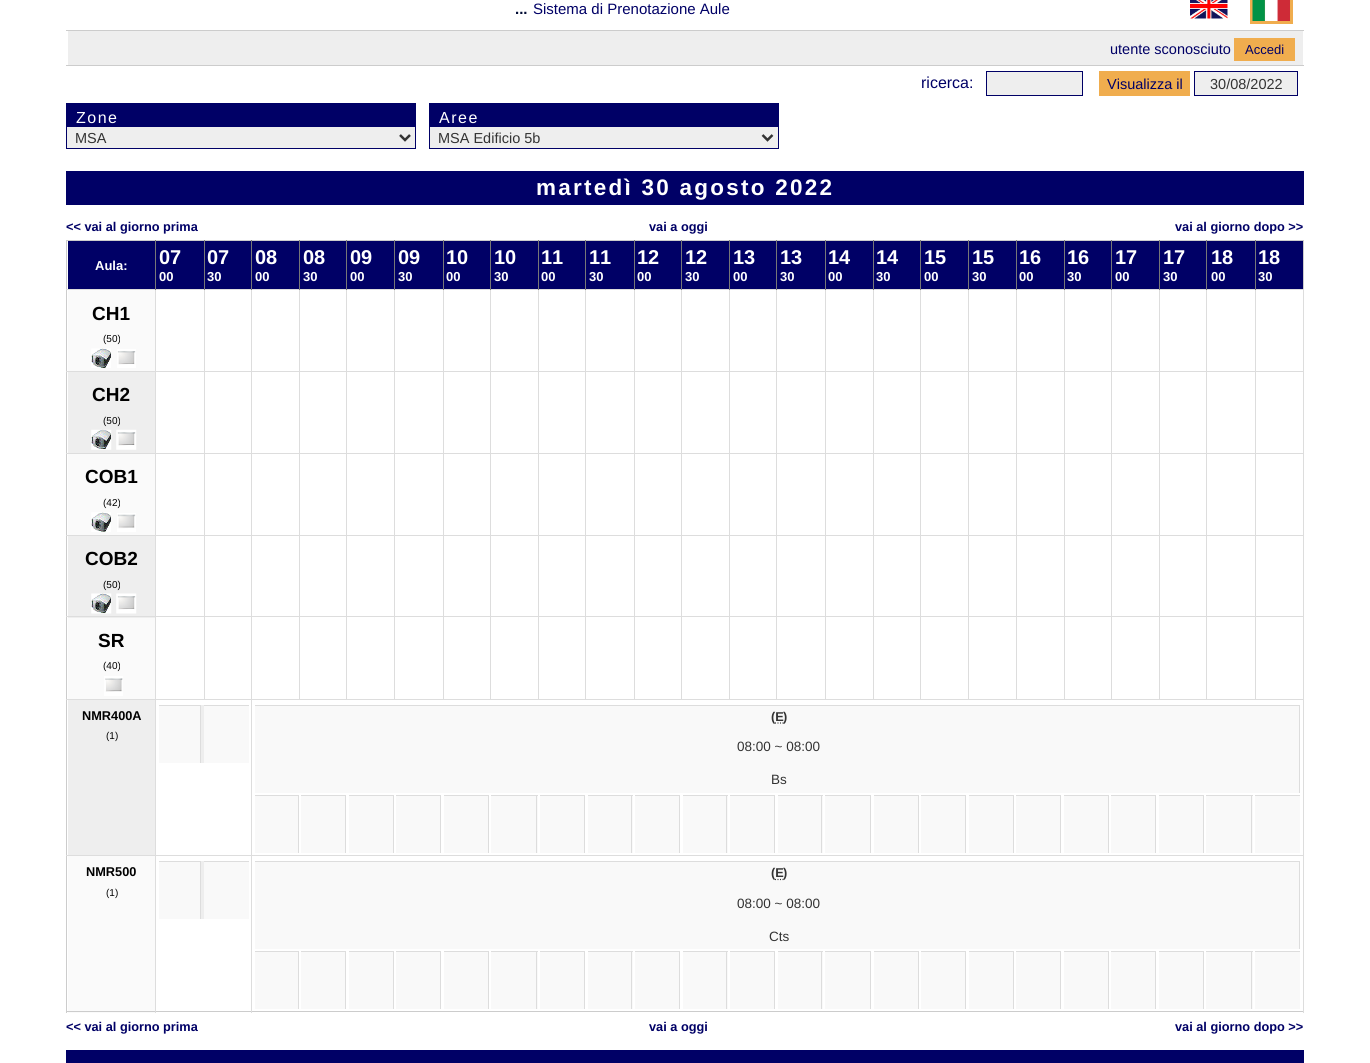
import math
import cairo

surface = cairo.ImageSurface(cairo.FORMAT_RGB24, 1370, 1063)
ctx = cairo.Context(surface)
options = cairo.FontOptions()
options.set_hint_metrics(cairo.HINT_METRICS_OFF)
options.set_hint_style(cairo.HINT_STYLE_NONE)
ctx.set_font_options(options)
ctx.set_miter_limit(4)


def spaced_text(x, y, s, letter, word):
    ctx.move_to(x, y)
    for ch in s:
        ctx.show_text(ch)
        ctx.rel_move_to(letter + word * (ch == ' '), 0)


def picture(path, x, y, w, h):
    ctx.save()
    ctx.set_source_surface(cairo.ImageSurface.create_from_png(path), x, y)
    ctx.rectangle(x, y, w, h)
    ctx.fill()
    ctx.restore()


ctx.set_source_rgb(1, 1, 1)
ctx.paint()
ctx.select_font_face("Liberation Sans", cairo.FONT_SLANT_NORMAL, cairo.FONT_WEIGHT_BOLD)
ctx.set_font_size(15)
ctx.set_source_rgb(0, 0.043, 0.204)
ctx.move_to(515, 14)
ctx.show_text("...")
ctx.select_font_face("Liberation Sans")
ctx.set_source_rgb(0, 0, 0.4)
ctx.move_to(533, 14)
ctx.show_text("Sistema di Prenotazione Aule")
picture("img1.png", 1190, 0, 38, 19)
ctx.rectangle(1251.5, -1.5, 40, 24)
ctx.set_source_rgb(0.941, 0.678, 0.306)
ctx.set_line_width(3)
ctx.stroke()
picture("img2.png", 1252, 0, 38, 21)
ctx.set_source_rgb(0.933, 0.933, 0.933)
ctx.rectangle(68, 31, 1235, 34)
ctx.fill()
ctx.set_source_rgb(0.8, 0.8, 0.8)
ctx.rectangle(66, 30, 1238, 1)
ctx.fill()
ctx.rectangle(66, 65, 1238, 1)
ctx.fill()
ctx.set_font_size(14.5)
ctx.set_source_rgb(0, 0, 0.4)
ctx.move_to(1110, 54)
ctx.show_text("utente sconosciuto")
ctx.set_source_rgb(0.941, 0.678, 0.306)
ctx.rectangle(1234, 38, 61, 23)
ctx.fill()
ctx.set_font_size(13)
ctx.set_source_rgb(0, 0, 0.4)
ctx.move_to(1245, 54)
ctx.show_text("Accedi")
ctx.set_font_size(16)
ctx.move_to(921, 88)
ctx.show_text("ricerca:")
ctx.set_source_rgb(0.933, 0.933, 0.933)
ctx.rectangle(986.5, 71.5, 96, 24)
ctx.fill_preserve()
ctx.set_source_rgb(0, 0, 0.4)
ctx.set_line_width(1)
ctx.stroke()
ctx.set_source_rgb(0.941, 0.678, 0.306)
ctx.rectangle(1099, 71, 91, 25)
ctx.fill()
ctx.set_font_size(14.5)
ctx.set_source_rgb(0, 0, 0.4)
ctx.move_to(1107, 89)
ctx.show_text("Visualizza il")
ctx.set_source_rgb(0.933, 0.933, 0.933)
ctx.rectangle(1194.5, 71.5, 103, 24)
ctx.fill_preserve()
ctx.set_source_rgb(0, 0, 0.4)
ctx.stroke()
ctx.set_source_rgb(0.2, 0.2, 0.2)
ctx.move_to(1210, 89)
ctx.show_text("30/08/2022")
ctx.set_source_rgb(0, 0, 0.4)
ctx.rectangle(66, 103, 350, 23)
ctx.fill()
ctx.set_font_size(16)
ctx.set_source_rgb(1, 1, 1)
spaced_text(76, 123, "Zone", 1.5, 0)
ctx.set_source_rgb(0.933, 0.933, 0.933)
ctx.rectangle(66.5, 126.5, 349, 22)
ctx.fill_preserve()
ctx.set_source_rgb(0, 0, 0.4)
ctx.stroke()
ctx.new_path()
ctx.move_to(400, 135)
ctx.line_to(405, 140)
ctx.line_to(410, 135)
ctx.set_source_rgb(0.2, 0.2, 0.2)
ctx.set_line_width(2.5)
ctx.stroke()
ctx.set_font_size(14.5)
ctx.move_to(75, 143)
ctx.show_text("MSA")
ctx.set_source_rgb(0, 0, 0.4)
ctx.rectangle(429, 103, 350, 23)
ctx.fill()
ctx.set_font_size(16)
ctx.set_source_rgb(1, 1, 1)
spaced_text(439, 123, "Aree", 1.5, 0)
ctx.set_source_rgb(0.933, 0.933, 0.933)
ctx.rectangle(429.5, 126.5, 349, 22)
ctx.fill_preserve()
ctx.set_source_rgb(0, 0, 0.4)
ctx.set_line_width(1)
ctx.stroke()
ctx.new_path()
ctx.move_to(762.5, 135)
ctx.line_to(767.5, 140)
ctx.line_to(772.5, 135)
ctx.set_source_rgb(0.2, 0.2, 0.2)
ctx.set_line_width(2.5)
ctx.stroke()
ctx.set_font_size(14.5)
ctx.move_to(438, 143)
ctx.show_text("MSA Edificio 5b")
ctx.set_source_rgb(0, 0, 0.4)
ctx.rectangle(66, 171, 1238, 34)
ctx.fill()
ctx.select_font_face("Liberation Sans", cairo.FONT_SLANT_NORMAL, cairo.FONT_WEIGHT_BOLD)
ctx.set_font_size(22.5)
ctx.set_source_rgb(1, 1, 1)
spaced_text(536, 195, "martedì 30 agosto 2022", 2.25, 0)
ctx.set_font_size(12.75)
ctx.set_source_rgb(0, 0, 0.4)
ctx.move_to(66, 231)
ctx.show_text("<< vai al giorno prima")
ctx.move_to(649, 231)
ctx.show_text("vai a oggi")
ctx.move_to(1175, 231)
ctx.show_text("vai al giorno dopo >>")
ctx.set_source_rgb(0.8, 0.8, 0.8)
ctx.rectangle(66, 240, 1238, 1)
ctx.fill()
ctx.rectangle(1303, 240, 1, 49)
ctx.fill()
ctx.set_source_rgb(0.98, 0.98, 0.98)
ctx.rectangle(68, 856, 87, 157)
ctx.fill()
ctx.set_source_rgb(0.8, 0.8, 0.8)
ctx.rectangle(66, 1011, 1238, 1)
ctx.fill()
ctx.rectangle(66, 240, 1, 773)
ctx.fill()
ctx.set_source_rgb(0, 0, 0.4)
ctx.rectangle(68, 241, 87, 48)
ctx.fill()
ctx.set_font_size(13)
ctx.set_source_rgb(1, 1, 1)
ctx.move_to(95, 270)
ctx.show_text("Aula:")
ctx.set_source_rgb(0, 0, 0.4)
ctx.rectangle(156, 241, 48, 48)
ctx.fill()
ctx.set_source_rgb(0.867, 0.867, 0.867)
ctx.rectangle(66, 289, 1238, 1)
ctx.fill()
ctx.rectangle(66, 371, 1238, 1)
ctx.fill()
ctx.rectangle(66, 453, 1238, 1)
ctx.fill()
ctx.rectangle(66, 535, 1238, 1)
ctx.fill()
ctx.set_source_rgb(0.933, 0.933, 0.933)
ctx.rectangle(68, 536, 87, 82)
ctx.fill()
ctx.set_source_rgb(0.867, 0.867, 0.867)
ctx.rectangle(66, 616, 1238, 1)
ctx.fill()
ctx.rectangle(66, 699, 1238, 1)
ctx.fill()
ctx.rectangle(66, 855, 1238, 1)
ctx.fill()
ctx.rectangle(155, 855, 1, 158)
ctx.fill()
ctx.rectangle(155, 699, 1, 157)
ctx.fill()
ctx.rectangle(155, 616, 1, 84)
ctx.fill()
ctx.rectangle(155, 535, 1, 83)
ctx.fill()
ctx.rectangle(155, 453, 1, 83)
ctx.fill()
ctx.rectangle(155, 371, 1, 83)
ctx.fill()
ctx.rectangle(155, 289, 1, 84)
ctx.fill()
ctx.set_source_rgb(0.467, 0.467, 0.467)
ctx.rectangle(155, 240, 1, 50)
ctx.fill()
ctx.set_font_size(20)
ctx.set_source_rgb(1, 1, 1)
ctx.move_to(159, 264)
ctx.show_text("07")
ctx.set_font_size(13)
ctx.move_to(159, 281)
ctx.show_text("00")
ctx.set_source_rgb(0, 0, 0.4)
ctx.rectangle(205, 241, 46, 48)
ctx.fill()
ctx.set_source_rgb(0.867, 0.867, 0.867)
ctx.rectangle(204, 616, 1, 84)
ctx.fill()
ctx.rectangle(204, 535, 1, 83)
ctx.fill()
ctx.rectangle(204, 453, 1, 83)
ctx.fill()
ctx.rectangle(204, 371, 1, 83)
ctx.fill()
ctx.rectangle(204, 289, 1, 84)
ctx.fill()
ctx.set_source_rgb(0.467, 0.467, 0.467)
ctx.rectangle(204, 240, 1, 50)
ctx.fill()
ctx.set_font_size(20)
ctx.set_source_rgb(1, 1, 1)
ctx.move_to(207, 264)
ctx.show_text("07")
ctx.set_font_size(13)
ctx.move_to(207, 281)
ctx.show_text("30")
ctx.set_source_rgb(0, 0, 0.4)
ctx.rectangle(252, 241, 47, 48)
ctx.fill()
ctx.set_source_rgb(0.867, 0.867, 0.867)
ctx.rectangle(251, 855, 1, 158)
ctx.fill()
ctx.rectangle(251, 699, 1, 157)
ctx.fill()
ctx.rectangle(251, 616, 1, 84)
ctx.fill()
ctx.rectangle(251, 535, 1, 83)
ctx.fill()
ctx.rectangle(251, 453, 1, 83)
ctx.fill()
ctx.rectangle(251, 371, 1, 83)
ctx.fill()
ctx.rectangle(251, 289, 1, 84)
ctx.fill()
ctx.set_source_rgb(0.467, 0.467, 0.467)
ctx.rectangle(251, 240, 1, 50)
ctx.fill()
ctx.set_font_size(20)
ctx.set_source_rgb(1, 1, 1)
ctx.move_to(255, 264)
ctx.show_text("08")
ctx.set_font_size(13)
ctx.move_to(255, 281)
ctx.show_text("00")
ctx.set_source_rgb(0, 0, 0.4)
ctx.rectangle(300, 241, 94, 48)
ctx.fill()
ctx.set_source_rgb(0.867, 0.867, 0.867)
ctx.rectangle(299, 616, 1, 84)
ctx.fill()
ctx.rectangle(299, 535, 1, 83)
ctx.fill()
ctx.rectangle(299, 453, 1, 83)
ctx.fill()
ctx.rectangle(299, 371, 1, 83)
ctx.fill()
ctx.rectangle(299, 289, 1, 84)
ctx.fill()
ctx.set_source_rgb(0.467, 0.467, 0.467)
ctx.rectangle(299, 240, 1, 50)
ctx.fill()
ctx.set_font_size(20)
ctx.set_source_rgb(1, 1, 1)
ctx.move_to(303, 264)
ctx.show_text("08")
ctx.set_font_size(13)
ctx.move_to(303, 281)
ctx.show_text("30")
ctx.set_source_rgb(0.867, 0.867, 0.867)
ctx.rectangle(346, 616, 1, 84)
ctx.fill()
ctx.rectangle(346, 535, 1, 83)
ctx.fill()
ctx.rectangle(346, 453, 1, 83)
ctx.fill()
ctx.rectangle(346, 371, 1, 83)
ctx.fill()
ctx.rectangle(346, 289, 1, 84)
ctx.fill()
ctx.set_source_rgb(0.467, 0.467, 0.467)
ctx.rectangle(346, 240, 1, 50)
ctx.fill()
ctx.set_font_size(20)
ctx.set_source_rgb(1, 1, 1)
ctx.move_to(350, 264)
ctx.show_text("09")
ctx.set_font_size(13)
ctx.move_to(350, 281)
ctx.show_text("00")
ctx.set_source_rgb(0, 0, 0.4)
ctx.rectangle(395, 241, 48, 48)
ctx.fill()
ctx.set_source_rgb(0.867, 0.867, 0.867)
ctx.rectangle(394, 616, 1, 84)
ctx.fill()
ctx.rectangle(394, 535, 1, 83)
ctx.fill()
ctx.rectangle(394, 453, 1, 83)
ctx.fill()
ctx.rectangle(394, 371, 1, 83)
ctx.fill()
ctx.rectangle(394, 289, 1, 84)
ctx.fill()
ctx.set_source_rgb(0.467, 0.467, 0.467)
ctx.rectangle(394, 240, 1, 50)
ctx.fill()
ctx.set_font_size(20)
ctx.set_source_rgb(1, 1, 1)
ctx.move_to(398, 264)
ctx.show_text("09")
ctx.set_font_size(13)
ctx.move_to(398, 281)
ctx.show_text("30")
ctx.set_source_rgb(0, 0, 0.4)
ctx.rectangle(444, 241, 46, 48)
ctx.fill()
ctx.set_source_rgb(0.867, 0.867, 0.867)
ctx.rectangle(443, 616, 1, 84)
ctx.fill()
ctx.rectangle(443, 535, 1, 83)
ctx.fill()
ctx.rectangle(443, 453, 1, 83)
ctx.fill()
ctx.rectangle(443, 371, 1, 83)
ctx.fill()
ctx.rectangle(443, 289, 1, 84)
ctx.fill()
ctx.set_source_rgb(0.467, 0.467, 0.467)
ctx.rectangle(443, 240, 1, 50)
ctx.fill()
ctx.set_font_size(20)
ctx.set_source_rgb(1, 1, 1)
ctx.move_to(446, 264)
ctx.show_text("10")
ctx.set_font_size(13)
ctx.move_to(446, 281)
ctx.show_text("00")
ctx.set_source_rgb(0, 0, 0.4)
ctx.rectangle(491, 241, 47, 48)
ctx.fill()
ctx.set_source_rgb(0.867, 0.867, 0.867)
ctx.rectangle(490, 616, 1, 84)
ctx.fill()
ctx.rectangle(490, 535, 1, 83)
ctx.fill()
ctx.rectangle(490, 453, 1, 83)
ctx.fill()
ctx.rectangle(490, 371, 1, 83)
ctx.fill()
ctx.rectangle(490, 289, 1, 84)
ctx.fill()
ctx.set_source_rgb(0.467, 0.467, 0.467)
ctx.rectangle(490, 240, 1, 50)
ctx.fill()
ctx.set_font_size(20)
ctx.set_source_rgb(1, 1, 1)
ctx.move_to(494, 264)
ctx.show_text("10")
ctx.set_font_size(13)
ctx.move_to(494, 281)
ctx.show_text("30")
ctx.set_source_rgb(0, 0, 0.4)
ctx.rectangle(539, 241, 46, 48)
ctx.fill()
ctx.set_source_rgb(0.867, 0.867, 0.867)
ctx.rectangle(538, 616, 1, 84)
ctx.fill()
ctx.rectangle(538, 535, 1, 83)
ctx.fill()
ctx.rectangle(538, 453, 1, 83)
ctx.fill()
ctx.rectangle(538, 371, 1, 83)
ctx.fill()
ctx.rectangle(538, 289, 1, 84)
ctx.fill()
ctx.set_source_rgb(0.467, 0.467, 0.467)
ctx.rectangle(538, 240, 1, 50)
ctx.fill()
ctx.set_font_size(20)
ctx.set_source_rgb(1, 1, 1)
ctx.move_to(541, 264)
ctx.show_text("11")
ctx.set_font_size(13)
ctx.move_to(541, 281)
ctx.show_text("00")
ctx.set_source_rgb(0, 0, 0.4)
ctx.rectangle(586, 241, 48, 48)
ctx.fill()
ctx.set_source_rgb(0.867, 0.867, 0.867)
ctx.rectangle(585, 616, 1, 84)
ctx.fill()
ctx.rectangle(585, 535, 1, 83)
ctx.fill()
ctx.rectangle(585, 453, 1, 83)
ctx.fill()
ctx.rectangle(585, 371, 1, 83)
ctx.fill()
ctx.rectangle(585, 289, 1, 84)
ctx.fill()
ctx.set_source_rgb(0.467, 0.467, 0.467)
ctx.rectangle(585, 240, 1, 50)
ctx.fill()
ctx.set_font_size(20)
ctx.set_source_rgb(1, 1, 1)
ctx.move_to(589, 264)
ctx.show_text("11")
ctx.set_font_size(13)
ctx.move_to(589, 281)
ctx.show_text("30")
ctx.set_source_rgb(0, 0, 0.4)
ctx.rectangle(635, 241, 46, 48)
ctx.fill()
ctx.set_source_rgb(0.867, 0.867, 0.867)
ctx.rectangle(634, 616, 1, 84)
ctx.fill()
ctx.rectangle(634, 535, 1, 83)
ctx.fill()
ctx.rectangle(634, 453, 1, 83)
ctx.fill()
ctx.rectangle(634, 371, 1, 83)
ctx.fill()
ctx.rectangle(634, 289, 1, 84)
ctx.fill()
ctx.set_source_rgb(0.467, 0.467, 0.467)
ctx.rectangle(634, 240, 1, 50)
ctx.fill()
ctx.set_font_size(20)
ctx.set_source_rgb(1, 1, 1)
ctx.move_to(637, 264)
ctx.show_text("12")
ctx.set_font_size(13)
ctx.move_to(637, 281)
ctx.show_text("00")
ctx.set_source_rgb(0, 0, 0.4)
ctx.rectangle(682, 241, 47, 48)
ctx.fill()
ctx.set_source_rgb(0.867, 0.867, 0.867)
ctx.rectangle(681, 616, 1, 84)
ctx.fill()
ctx.rectangle(681, 535, 1, 83)
ctx.fill()
ctx.rectangle(681, 453, 1, 83)
ctx.fill()
ctx.rectangle(681, 371, 1, 83)
ctx.fill()
ctx.rectangle(681, 289, 1, 84)
ctx.fill()
ctx.set_source_rgb(0.467, 0.467, 0.467)
ctx.rectangle(681, 240, 1, 50)
ctx.fill()
ctx.set_font_size(20)
ctx.set_source_rgb(1, 1, 1)
ctx.move_to(685, 264)
ctx.show_text("12")
ctx.set_font_size(13)
ctx.move_to(685, 281)
ctx.show_text("30")
ctx.set_source_rgb(0, 0, 0.4)
ctx.rectangle(730, 241, 95, 48)
ctx.fill()
ctx.set_source_rgb(0.867, 0.867, 0.867)
ctx.rectangle(729, 616, 1, 84)
ctx.fill()
ctx.rectangle(729, 535, 1, 83)
ctx.fill()
ctx.rectangle(729, 453, 1, 83)
ctx.fill()
ctx.rectangle(729, 371, 1, 83)
ctx.fill()
ctx.rectangle(729, 289, 1, 84)
ctx.fill()
ctx.set_source_rgb(0.467, 0.467, 0.467)
ctx.rectangle(729, 240, 1, 50)
ctx.fill()
ctx.set_font_size(20)
ctx.set_source_rgb(1, 1, 1)
ctx.move_to(733, 264)
ctx.show_text("13")
ctx.set_font_size(13)
ctx.move_to(733, 281)
ctx.show_text("00")
ctx.set_source_rgb(0.867, 0.867, 0.867)
ctx.rectangle(776, 616, 1, 84)
ctx.fill()
ctx.rectangle(776, 535, 1, 83)
ctx.fill()
ctx.rectangle(776, 453, 1, 83)
ctx.fill()
ctx.rectangle(776, 371, 1, 83)
ctx.fill()
ctx.rectangle(776, 289, 1, 84)
ctx.fill()
ctx.set_source_rgb(0.467, 0.467, 0.467)
ctx.rectangle(776, 240, 1, 50)
ctx.fill()
ctx.set_font_size(20)
ctx.set_source_rgb(1, 1, 1)
ctx.move_to(780, 264)
ctx.show_text("13")
ctx.set_font_size(13)
ctx.move_to(780, 281)
ctx.show_text("30")
ctx.set_source_rgb(0, 0, 0.4)
ctx.rectangle(826, 241, 47, 48)
ctx.fill()
ctx.set_source_rgb(0.867, 0.867, 0.867)
ctx.rectangle(825, 616, 1, 84)
ctx.fill()
ctx.rectangle(825, 535, 1, 83)
ctx.fill()
ctx.rectangle(825, 453, 1, 83)
ctx.fill()
ctx.rectangle(825, 371, 1, 83)
ctx.fill()
ctx.rectangle(825, 289, 1, 84)
ctx.fill()
ctx.set_source_rgb(0.467, 0.467, 0.467)
ctx.rectangle(825, 240, 1, 50)
ctx.fill()
ctx.set_font_size(20)
ctx.set_source_rgb(1, 1, 1)
ctx.move_to(828, 264)
ctx.show_text("14")
ctx.set_font_size(13)
ctx.move_to(828, 281)
ctx.show_text("00")
ctx.set_source_rgb(0, 0, 0.4)
ctx.rectangle(874, 241, 46, 48)
ctx.fill()
ctx.set_source_rgb(0.867, 0.867, 0.867)
ctx.rectangle(873, 616, 1, 84)
ctx.fill()
ctx.rectangle(873, 535, 1, 83)
ctx.fill()
ctx.rectangle(873, 453, 1, 83)
ctx.fill()
ctx.rectangle(873, 371, 1, 83)
ctx.fill()
ctx.rectangle(873, 289, 1, 84)
ctx.fill()
ctx.set_source_rgb(0.467, 0.467, 0.467)
ctx.rectangle(873, 240, 1, 50)
ctx.fill()
ctx.set_font_size(20)
ctx.set_source_rgb(1, 1, 1)
ctx.move_to(876, 264)
ctx.show_text("14")
ctx.set_font_size(13)
ctx.move_to(876, 281)
ctx.show_text("30")
ctx.set_source_rgb(0, 0, 0.4)
ctx.rectangle(921, 241, 47, 48)
ctx.fill()
ctx.set_source_rgb(0.867, 0.867, 0.867)
ctx.rectangle(920, 616, 1, 84)
ctx.fill()
ctx.rectangle(920, 535, 1, 83)
ctx.fill()
ctx.rectangle(920, 453, 1, 83)
ctx.fill()
ctx.rectangle(920, 371, 1, 83)
ctx.fill()
ctx.rectangle(920, 289, 1, 84)
ctx.fill()
ctx.set_source_rgb(0.467, 0.467, 0.467)
ctx.rectangle(920, 240, 1, 50)
ctx.fill()
ctx.set_font_size(20)
ctx.set_source_rgb(1, 1, 1)
ctx.move_to(924, 264)
ctx.show_text("15")
ctx.set_font_size(13)
ctx.move_to(924, 281)
ctx.show_text("00")
ctx.set_source_rgb(0, 0, 0.4)
ctx.rectangle(969, 241, 47, 48)
ctx.fill()
ctx.set_source_rgb(0.867, 0.867, 0.867)
ctx.rectangle(968, 616, 1, 84)
ctx.fill()
ctx.rectangle(968, 535, 1, 83)
ctx.fill()
ctx.rectangle(968, 453, 1, 83)
ctx.fill()
ctx.rectangle(968, 371, 1, 83)
ctx.fill()
ctx.rectangle(968, 289, 1, 84)
ctx.fill()
ctx.set_source_rgb(0.467, 0.467, 0.467)
ctx.rectangle(968, 240, 1, 50)
ctx.fill()
ctx.set_font_size(20)
ctx.set_source_rgb(1, 1, 1)
ctx.move_to(972, 264)
ctx.show_text("15")
ctx.set_font_size(13)
ctx.move_to(972, 281)
ctx.show_text("30")
ctx.set_source_rgb(0, 0, 0.4)
ctx.rectangle(1017, 241, 47, 48)
ctx.fill()
ctx.set_source_rgb(0.867, 0.867, 0.867)
ctx.rectangle(1016, 616, 1, 84)
ctx.fill()
ctx.rectangle(1016, 535, 1, 83)
ctx.fill()
ctx.rectangle(1016, 453, 1, 83)
ctx.fill()
ctx.rectangle(1016, 371, 1, 83)
ctx.fill()
ctx.rectangle(1016, 289, 1, 84)
ctx.fill()
ctx.set_source_rgb(0.467, 0.467, 0.467)
ctx.rectangle(1016, 240, 1, 50)
ctx.fill()
ctx.set_font_size(20)
ctx.set_source_rgb(1, 1, 1)
ctx.move_to(1019, 264)
ctx.show_text("16")
ctx.set_font_size(13)
ctx.move_to(1019, 281)
ctx.show_text("00")
ctx.set_source_rgb(0, 0, 0.4)
ctx.rectangle(1065, 241, 46, 48)
ctx.fill()
ctx.set_source_rgb(0.867, 0.867, 0.867)
ctx.rectangle(1064, 616, 1, 84)
ctx.fill()
ctx.rectangle(1064, 535, 1, 83)
ctx.fill()
ctx.rectangle(1064, 453, 1, 83)
ctx.fill()
ctx.rectangle(1064, 371, 1, 83)
ctx.fill()
ctx.rectangle(1064, 289, 1, 84)
ctx.fill()
ctx.set_source_rgb(0.467, 0.467, 0.467)
ctx.rectangle(1064, 240, 1, 50)
ctx.fill()
ctx.set_font_size(20)
ctx.set_source_rgb(1, 1, 1)
ctx.move_to(1067, 264)
ctx.show_text("16")
ctx.set_font_size(13)
ctx.move_to(1067, 281)
ctx.show_text("30")
ctx.set_source_rgb(0, 0, 0.4)
ctx.rectangle(1112, 241, 47, 48)
ctx.fill()
ctx.set_source_rgb(0.867, 0.867, 0.867)
ctx.rectangle(1111, 616, 1, 84)
ctx.fill()
ctx.rectangle(1111, 535, 1, 83)
ctx.fill()
ctx.rectangle(1111, 453, 1, 83)
ctx.fill()
ctx.rectangle(1111, 371, 1, 83)
ctx.fill()
ctx.rectangle(1111, 289, 1, 84)
ctx.fill()
ctx.set_source_rgb(0.467, 0.467, 0.467)
ctx.rectangle(1111, 240, 1, 50)
ctx.fill()
ctx.set_font_size(20)
ctx.set_source_rgb(1, 1, 1)
ctx.move_to(1115, 264)
ctx.show_text("17")
ctx.set_font_size(13)
ctx.move_to(1115, 281)
ctx.show_text("00")
ctx.set_source_rgb(0, 0, 0.4)
ctx.rectangle(1160, 241, 95, 48)
ctx.fill()
ctx.set_source_rgb(0.867, 0.867, 0.867)
ctx.rectangle(1159, 616, 1, 84)
ctx.fill()
ctx.rectangle(1159, 535, 1, 83)
ctx.fill()
ctx.rectangle(1159, 453, 1, 83)
ctx.fill()
ctx.rectangle(1159, 371, 1, 83)
ctx.fill()
ctx.rectangle(1159, 289, 1, 84)
ctx.fill()
ctx.set_source_rgb(0.467, 0.467, 0.467)
ctx.rectangle(1159, 240, 1, 50)
ctx.fill()
ctx.set_font_size(20)
ctx.set_source_rgb(1, 1, 1)
ctx.move_to(1163, 264)
ctx.show_text("17")
ctx.set_font_size(13)
ctx.move_to(1163, 281)
ctx.show_text("30")
ctx.set_source_rgb(0.867, 0.867, 0.867)
ctx.rectangle(1206, 616, 1, 84)
ctx.fill()
ctx.rectangle(1206, 535, 1, 83)
ctx.fill()
ctx.rectangle(1206, 453, 1, 83)
ctx.fill()
ctx.rectangle(1206, 371, 1, 83)
ctx.fill()
ctx.rectangle(1206, 289, 1, 84)
ctx.fill()
ctx.set_source_rgb(0.467, 0.467, 0.467)
ctx.rectangle(1206, 240, 1, 50)
ctx.fill()
ctx.set_font_size(20)
ctx.set_source_rgb(1, 1, 1)
ctx.move_to(1211, 264)
ctx.show_text("18")
ctx.set_font_size(13)
ctx.move_to(1211, 281)
ctx.show_text("00")
ctx.set_source_rgb(0, 0, 0.4)
ctx.rectangle(1256, 241, 47, 48)
ctx.fill()
ctx.set_source_rgb(0.867, 0.867, 0.867)
ctx.rectangle(1255, 616, 1, 84)
ctx.fill()
ctx.rectangle(1255, 535, 1, 83)
ctx.fill()
ctx.rectangle(1255, 453, 1, 83)
ctx.fill()
ctx.rectangle(1255, 371, 1, 83)
ctx.fill()
ctx.rectangle(1255, 289, 1, 84)
ctx.fill()
ctx.set_source_rgb(0.467, 0.467, 0.467)
ctx.rectangle(1255, 240, 1, 50)
ctx.fill()
ctx.set_font_size(20)
ctx.set_source_rgb(1, 1, 1)
ctx.move_to(1258, 264)
ctx.show_text("18")
ctx.set_font_size(13)
ctx.move_to(1258, 281)
ctx.show_text("30")
ctx.set_source_rgb(0.867, 0.867, 0.867)
ctx.rectangle(1303, 855, 1, 158)
ctx.fill()
ctx.rectangle(1303, 699, 1, 157)
ctx.fill()
ctx.rectangle(1303, 616, 1, 84)
ctx.fill()
ctx.rectangle(1303, 535, 1, 83)
ctx.fill()
ctx.rectangle(1303, 453, 1, 83)
ctx.fill()
ctx.rectangle(1303, 371, 1, 83)
ctx.fill()
ctx.rectangle(1303, 289, 1, 84)
ctx.fill()
ctx.set_source_rgb(0.98, 0.98, 0.98)
ctx.rectangle(68, 290, 87, 81)
ctx.fill()
ctx.set_font_size(19)
ctx.set_source_rgb(0, 0, 0)
ctx.move_to(92, 320)
ctx.show_text("CH1")
ctx.select_font_face("Liberation Sans")
ctx.set_font_size(10)
ctx.move_to(103, 342)
ctx.show_text("(50)")
picture("img3.png", 91, 348, 20, 20)
picture("img4.png", 117, 349, 19, 19)
ctx.set_source_rgb(0.933, 0.933, 0.933)
ctx.rectangle(68, 372, 87, 81)
ctx.fill()
ctx.select_font_face("Liberation Sans", cairo.FONT_SLANT_NORMAL, cairo.FONT_WEIGHT_BOLD)
ctx.set_font_size(19)
ctx.set_source_rgb(0, 0, 0)
ctx.move_to(92, 401)
ctx.show_text("CH2")
ctx.select_font_face("Liberation Sans")
ctx.set_font_size(10)
ctx.move_to(103, 424)
ctx.show_text("(50)")
picture("img5.png", 91, 429, 21, 21)
picture("img6.png", 116, 429, 21, 21)
ctx.set_source_rgb(0.98, 0.98, 0.98)
ctx.rectangle(68, 454, 87, 81)
ctx.fill()
ctx.select_font_face("Liberation Sans", cairo.FONT_SLANT_NORMAL, cairo.FONT_WEIGHT_BOLD)
ctx.set_font_size(19)
ctx.set_source_rgb(0, 0, 0)
ctx.move_to(85, 483)
ctx.show_text("COB1")
ctx.select_font_face("Liberation Sans")
ctx.set_font_size(10)
ctx.move_to(103, 506)
ctx.show_text("(42)")
picture("img7.png", 91, 512, 20, 20)
picture("img8.png", 117, 513, 19, 19)
ctx.select_font_face("Liberation Sans", cairo.FONT_SLANT_NORMAL, cairo.FONT_WEIGHT_BOLD)
ctx.set_font_size(19)
ctx.move_to(85, 565)
ctx.show_text("COB2")
ctx.select_font_face("Liberation Sans")
ctx.set_font_size(10)
ctx.move_to(103, 588)
ctx.show_text("(50)")
picture("img9.png", 91, 593, 21, 21)
picture("img10.png", 116, 593, 21, 21)
ctx.set_source_rgb(0.98, 0.98, 0.98)
ctx.rectangle(68, 618, 87, 81)
ctx.fill()
ctx.select_font_face("Liberation Sans", cairo.FONT_SLANT_NORMAL, cairo.FONT_WEIGHT_BOLD)
ctx.set_font_size(19)
ctx.set_source_rgb(0, 0, 0)
ctx.move_to(98, 647)
ctx.show_text("SR")
ctx.select_font_face("Liberation Sans")
ctx.set_font_size(10)
ctx.move_to(103, 669)
ctx.show_text("(40)")
picture("img11.png", 104, 676, 19, 20)
ctx.set_source_rgb(0.933, 0.933, 0.933)
ctx.rectangle(68, 700, 87, 155)
ctx.fill()
ctx.select_font_face("Liberation Sans", cairo.FONT_SLANT_NORMAL, cairo.FONT_WEIGHT_BOLD)
ctx.set_font_size(12.75)
ctx.set_source_rgb(0, 0, 0)
ctx.move_to(82, 720)
ctx.show_text("NMR400A")
ctx.select_font_face("Liberation Sans")
ctx.set_font_size(10)
ctx.move_to(106, 739)
ctx.show_text("(1)")
ctx.set_source_rgb(0.933, 0.933, 0.933)
ctx.rectangle(201, 705, 3, 58)
ctx.fill()
ctx.set_source_rgb(0.973, 0.973, 0.973)
ctx.rectangle(159, 706, 41, 57)
ctx.fill()
ctx.set_source_rgb(0.867, 0.867, 0.867)
ctx.rectangle(159, 705, 42, 1)
ctx.fill()
ctx.rectangle(200, 705, 1, 58)
ctx.fill()
ctx.set_source_rgb(0.973, 0.973, 0.973)
ctx.rectangle(204, 706, 45, 57)
ctx.fill()
ctx.set_source_rgb(0.867, 0.867, 0.867)
ctx.rectangle(204, 705, 45, 1)
ctx.fill()
ctx.set_source_rgb(0.973, 0.973, 0.973)
ctx.rectangle(255, 706, 1044, 87)
ctx.fill()
ctx.set_source_rgb(0.867, 0.867, 0.867)
ctx.rectangle(255, 705, 1045, 1)
ctx.fill()
ctx.rectangle(1299, 705, 1, 88)
ctx.fill()
ctx.select_font_face("Liberation Sans", cairo.FONT_SLANT_NORMAL, cairo.FONT_WEIGHT_BOLD)
ctx.set_font_size(12.75)
ctx.set_source_rgb(0.2, 0.2, 0.2)
ctx.move_to(771, 721)
ctx.show_text("(E")
ctx.new_path()
ctx.move_to(775, 723)
ctx.line_to(776, 723)
ctx.move_to(777.5, 723)
ctx.line_to(778.5, 723)
ctx.move_to(780, 723)
ctx.line_to(781, 723)
ctx.move_to(782.5, 723)
ctx.line_to(783.5, 723)
ctx.set_line_width(1.2)
ctx.stroke()
ctx.move_to(783, 721)
ctx.show_text(")")
ctx.select_font_face("Liberation Sans")
ctx.set_font_size(13.5)
ctx.move_to(737, 751)
ctx.show_text("08:00 ~ 08:00")
ctx.move_to(771, 784)
ctx.show_text("Bs")
ctx.set_source_rgb(0.973, 0.973, 0.973)
ctx.rectangle(255, 796, 43, 57)
ctx.fill()
ctx.set_source_rgb(0.867, 0.867, 0.867)
ctx.rectangle(255, 795, 44, 1)
ctx.fill()
ctx.rectangle(298, 795, 1, 58)
ctx.fill()
ctx.set_source_rgb(0.973, 0.973, 0.973)
ctx.rectangle(301, 796, 44, 57)
ctx.fill()
ctx.set_source_rgb(0.867, 0.867, 0.867)
ctx.rectangle(301, 795, 45, 1)
ctx.fill()
ctx.rectangle(345, 795, 1, 58)
ctx.fill()
ctx.set_source_rgb(0.973, 0.973, 0.973)
ctx.rectangle(349, 796, 44, 57)
ctx.fill()
ctx.set_source_rgb(0.867, 0.867, 0.867)
ctx.rectangle(349, 795, 45, 1)
ctx.fill()
ctx.rectangle(393, 795, 1, 58)
ctx.fill()
ctx.set_source_rgb(0.973, 0.973, 0.973)
ctx.rectangle(396, 796, 44, 57)
ctx.fill()
ctx.set_source_rgb(0.867, 0.867, 0.867)
ctx.rectangle(396, 795, 45, 1)
ctx.fill()
ctx.rectangle(440, 795, 1, 58)
ctx.fill()
ctx.set_source_rgb(0.973, 0.973, 0.973)
ctx.rectangle(444, 796, 44, 57)
ctx.fill()
ctx.set_source_rgb(0.867, 0.867, 0.867)
ctx.rectangle(444, 795, 45, 1)
ctx.fill()
ctx.rectangle(488, 795, 1, 58)
ctx.fill()
ctx.set_source_rgb(0.973, 0.973, 0.973)
ctx.rectangle(491, 796, 47, 57)
ctx.fill()
ctx.set_source_rgb(0.867, 0.867, 0.867)
ctx.rectangle(491, 795, 47, 1)
ctx.fill()
ctx.rectangle(536, 795, 1, 58)
ctx.fill()
ctx.set_source_rgb(0.973, 0.973, 0.973)
ctx.rectangle(540, 796, 44, 57)
ctx.fill()
ctx.set_source_rgb(0.867, 0.867, 0.867)
ctx.rectangle(540, 795, 45, 1)
ctx.fill()
ctx.rectangle(584, 795, 1, 58)
ctx.fill()
ctx.set_source_rgb(0.973, 0.973, 0.973)
ctx.rectangle(588, 796, 45, 57)
ctx.fill()
ctx.set_source_rgb(0.867, 0.867, 0.867)
ctx.rectangle(588, 795, 45, 1)
ctx.fill()
ctx.rectangle(631, 795, 1, 58)
ctx.fill()
ctx.set_source_rgb(0.973, 0.973, 0.973)
ctx.rectangle(635, 796, 44, 57)
ctx.fill()
ctx.set_source_rgb(0.867, 0.867, 0.867)
ctx.rectangle(635, 795, 45, 1)
ctx.fill()
ctx.rectangle(679, 795, 1, 58)
ctx.fill()
ctx.set_source_rgb(0.973, 0.973, 0.973)
ctx.rectangle(683, 796, 45, 57)
ctx.fill()
ctx.set_source_rgb(0.867, 0.867, 0.867)
ctx.rectangle(683, 795, 45, 1)
ctx.fill()
ctx.rectangle(726, 795, 1, 58)
ctx.fill()
ctx.set_source_rgb(0.973, 0.973, 0.973)
ctx.rectangle(730, 796, 44, 57)
ctx.fill()
ctx.set_source_rgb(0.867, 0.867, 0.867)
ctx.rectangle(730, 795, 45, 1)
ctx.fill()
ctx.rectangle(774, 795, 1, 58)
ctx.fill()
ctx.set_source_rgb(0.973, 0.973, 0.973)
ctx.rectangle(778, 796, 45, 57)
ctx.fill()
ctx.set_source_rgb(0.867, 0.867, 0.867)
ctx.rectangle(778, 795, 45, 1)
ctx.fill()
ctx.rectangle(821, 795, 1, 58)
ctx.fill()
ctx.set_source_rgb(0.973, 0.973, 0.973)
ctx.rectangle(825, 796, 45, 57)
ctx.fill()
ctx.set_source_rgb(0.867, 0.867, 0.867)
ctx.rectangle(825, 795, 46, 1)
ctx.fill()
ctx.rectangle(870, 795, 1, 58)
ctx.fill()
ctx.set_source_rgb(0.973, 0.973, 0.973)
ctx.rectangle(874, 796, 44, 57)
ctx.fill()
ctx.set_source_rgb(0.867, 0.867, 0.867)
ctx.rectangle(874, 795, 45, 1)
ctx.fill()
ctx.rectangle(918, 795, 1, 58)
ctx.fill()
ctx.set_source_rgb(0.973, 0.973, 0.973)
ctx.rectangle(921, 796, 44, 57)
ctx.fill()
ctx.set_source_rgb(0.867, 0.867, 0.867)
ctx.rectangle(921, 795, 45, 1)
ctx.fill()
ctx.rectangle(965, 795, 1, 58)
ctx.fill()
ctx.set_source_rgb(0.973, 0.973, 0.973)
ctx.rectangle(969, 796, 44, 57)
ctx.fill()
ctx.set_source_rgb(0.867, 0.867, 0.867)
ctx.rectangle(969, 795, 45, 1)
ctx.fill()
ctx.rectangle(1013, 795, 1, 58)
ctx.fill()
ctx.set_source_rgb(0.973, 0.973, 0.973)
ctx.rectangle(1016, 796, 44, 57)
ctx.fill()
ctx.set_source_rgb(0.867, 0.867, 0.867)
ctx.rectangle(1016, 795, 45, 1)
ctx.fill()
ctx.rectangle(1060, 795, 1, 58)
ctx.fill()
ctx.set_source_rgb(0.973, 0.973, 0.973)
ctx.rectangle(1064, 796, 44, 57)
ctx.fill()
ctx.set_source_rgb(0.867, 0.867, 0.867)
ctx.rectangle(1064, 795, 45, 1)
ctx.fill()
ctx.rectangle(1108, 795, 1, 58)
ctx.fill()
ctx.set_source_rgb(0.973, 0.973, 0.973)
ctx.rectangle(1111, 796, 44, 57)
ctx.fill()
ctx.set_source_rgb(0.867, 0.867, 0.867)
ctx.rectangle(1111, 795, 45, 1)
ctx.fill()
ctx.rectangle(1155, 795, 1, 58)
ctx.fill()
ctx.set_source_rgb(0.973, 0.973, 0.973)
ctx.rectangle(1159, 796, 44, 57)
ctx.fill()
ctx.set_source_rgb(0.867, 0.867, 0.867)
ctx.rectangle(1159, 795, 45, 1)
ctx.fill()
ctx.rectangle(1203, 795, 1, 58)
ctx.fill()
ctx.set_source_rgb(0.973, 0.973, 0.973)
ctx.rectangle(1206, 796, 47, 57)
ctx.fill()
ctx.set_source_rgb(0.867, 0.867, 0.867)
ctx.rectangle(1206, 795, 47, 1)
ctx.fill()
ctx.rectangle(1251, 795, 1, 58)
ctx.fill()
ctx.set_source_rgb(0.973, 0.973, 0.973)
ctx.rectangle(1255, 796, 45, 57)
ctx.fill()
ctx.set_source_rgb(0.867, 0.867, 0.867)
ctx.rectangle(1255, 795, 45, 1)
ctx.fill()
ctx.select_font_face("Liberation Sans", cairo.FONT_SLANT_NORMAL, cairo.FONT_WEIGHT_BOLD)
ctx.set_font_size(12.75)
ctx.set_source_rgb(0, 0, 0)
ctx.move_to(86, 876)
ctx.show_text("NMR500")
ctx.select_font_face("Liberation Sans")
ctx.set_font_size(10)
ctx.move_to(106, 896)
ctx.show_text("(1)")
ctx.set_source_rgb(0.933, 0.933, 0.933)
ctx.rectangle(201, 861, 3, 58)
ctx.fill()
ctx.set_source_rgb(0.973, 0.973, 0.973)
ctx.rectangle(159, 862, 41, 57)
ctx.fill()
ctx.set_source_rgb(0.867, 0.867, 0.867)
ctx.rectangle(159, 861, 42, 1)
ctx.fill()
ctx.rectangle(200, 861, 1, 58)
ctx.fill()
ctx.set_source_rgb(0.973, 0.973, 0.973)
ctx.rectangle(204, 862, 45, 57)
ctx.fill()
ctx.set_source_rgb(0.867, 0.867, 0.867)
ctx.rectangle(204, 861, 45, 1)
ctx.fill()
ctx.set_source_rgb(0.973, 0.973, 0.973)
ctx.rectangle(255, 862, 1044, 87)
ctx.fill()
ctx.set_source_rgb(0.867, 0.867, 0.867)
ctx.rectangle(255, 861, 1045, 1)
ctx.fill()
ctx.rectangle(1299, 861, 1, 88)
ctx.fill()
ctx.select_font_face("Liberation Sans", cairo.FONT_SLANT_NORMAL, cairo.FONT_WEIGHT_BOLD)
ctx.set_font_size(12.75)
ctx.set_source_rgb(0.2, 0.2, 0.2)
ctx.move_to(771, 877)
ctx.show_text("(E")
ctx.new_path()
ctx.move_to(775, 879.5)
ctx.line_to(776, 879.5)
ctx.move_to(777.5, 879.5)
ctx.line_to(778.5, 879.5)
ctx.move_to(780, 879.5)
ctx.line_to(781, 879.5)
ctx.move_to(782.5, 879.5)
ctx.line_to(783.5, 879.5)
ctx.stroke()
ctx.move_to(783, 877)
ctx.show_text(")")
ctx.select_font_face("Liberation Sans")
ctx.set_font_size(13.5)
ctx.move_to(737, 908)
ctx.show_text("08:00 ~ 08:00")
ctx.move_to(769, 941)
ctx.show_text("Cts")
ctx.set_source_rgb(0.973, 0.973, 0.973)
ctx.rectangle(255, 952, 43, 57)
ctx.fill()
ctx.set_source_rgb(0.867, 0.867, 0.867)
ctx.rectangle(255, 951, 44, 1)
ctx.fill()
ctx.rectangle(298, 951, 1, 58)
ctx.fill()
ctx.set_source_rgb(0.973, 0.973, 0.973)
ctx.rectangle(301, 952, 44, 57)
ctx.fill()
ctx.set_source_rgb(0.867, 0.867, 0.867)
ctx.rectangle(301, 951, 45, 1)
ctx.fill()
ctx.rectangle(345, 951, 1, 58)
ctx.fill()
ctx.set_source_rgb(0.973, 0.973, 0.973)
ctx.rectangle(349, 952, 44, 57)
ctx.fill()
ctx.set_source_rgb(0.867, 0.867, 0.867)
ctx.rectangle(349, 951, 45, 1)
ctx.fill()
ctx.rectangle(393, 951, 1, 58)
ctx.fill()
ctx.set_source_rgb(0.973, 0.973, 0.973)
ctx.rectangle(396, 952, 44, 57)
ctx.fill()
ctx.set_source_rgb(0.867, 0.867, 0.867)
ctx.rectangle(396, 951, 45, 1)
ctx.fill()
ctx.rectangle(440, 951, 1, 58)
ctx.fill()
ctx.set_source_rgb(0.973, 0.973, 0.973)
ctx.rectangle(444, 952, 44, 57)
ctx.fill()
ctx.set_source_rgb(0.867, 0.867, 0.867)
ctx.rectangle(444, 951, 45, 1)
ctx.fill()
ctx.rectangle(488, 951, 1, 58)
ctx.fill()
ctx.set_source_rgb(0.973, 0.973, 0.973)
ctx.rectangle(491, 952, 47, 57)
ctx.fill()
ctx.set_source_rgb(0.867, 0.867, 0.867)
ctx.rectangle(491, 951, 47, 1)
ctx.fill()
ctx.rectangle(536, 951, 1, 58)
ctx.fill()
ctx.set_source_rgb(0.973, 0.973, 0.973)
ctx.rectangle(540, 952, 44, 57)
ctx.fill()
ctx.set_source_rgb(0.867, 0.867, 0.867)
ctx.rectangle(540, 951, 45, 1)
ctx.fill()
ctx.rectangle(584, 951, 1, 58)
ctx.fill()
ctx.set_source_rgb(0.973, 0.973, 0.973)
ctx.rectangle(588, 952, 45, 57)
ctx.fill()
ctx.set_source_rgb(0.867, 0.867, 0.867)
ctx.rectangle(588, 951, 45, 1)
ctx.fill()
ctx.rectangle(631, 951, 1, 58)
ctx.fill()
ctx.set_source_rgb(0.973, 0.973, 0.973)
ctx.rectangle(635, 952, 44, 57)
ctx.fill()
ctx.set_source_rgb(0.867, 0.867, 0.867)
ctx.rectangle(635, 951, 45, 1)
ctx.fill()
ctx.rectangle(679, 951, 1, 58)
ctx.fill()
ctx.set_source_rgb(0.973, 0.973, 0.973)
ctx.rectangle(683, 952, 45, 57)
ctx.fill()
ctx.set_source_rgb(0.867, 0.867, 0.867)
ctx.rectangle(683, 951, 45, 1)
ctx.fill()
ctx.rectangle(726, 951, 1, 58)
ctx.fill()
ctx.set_source_rgb(0.973, 0.973, 0.973)
ctx.rectangle(730, 952, 44, 57)
ctx.fill()
ctx.set_source_rgb(0.867, 0.867, 0.867)
ctx.rectangle(730, 951, 45, 1)
ctx.fill()
ctx.rectangle(774, 951, 1, 58)
ctx.fill()
ctx.set_source_rgb(0.973, 0.973, 0.973)
ctx.rectangle(778, 952, 45, 57)
ctx.fill()
ctx.set_source_rgb(0.867, 0.867, 0.867)
ctx.rectangle(778, 951, 45, 1)
ctx.fill()
ctx.rectangle(821, 951, 1, 58)
ctx.fill()
ctx.set_source_rgb(0.973, 0.973, 0.973)
ctx.rectangle(825, 952, 45, 57)
ctx.fill()
ctx.set_source_rgb(0.867, 0.867, 0.867)
ctx.rectangle(825, 951, 46, 1)
ctx.fill()
ctx.rectangle(870, 951, 1, 58)
ctx.fill()
ctx.set_source_rgb(0.973, 0.973, 0.973)
ctx.rectangle(874, 952, 44, 57)
ctx.fill()
ctx.set_source_rgb(0.867, 0.867, 0.867)
ctx.rectangle(874, 951, 45, 1)
ctx.fill()
ctx.rectangle(918, 951, 1, 58)
ctx.fill()
ctx.set_source_rgb(0.973, 0.973, 0.973)
ctx.rectangle(921, 952, 44, 57)
ctx.fill()
ctx.set_source_rgb(0.867, 0.867, 0.867)
ctx.rectangle(921, 951, 45, 1)
ctx.fill()
ctx.rectangle(965, 951, 1, 58)
ctx.fill()
ctx.set_source_rgb(0.973, 0.973, 0.973)
ctx.rectangle(969, 952, 44, 57)
ctx.fill()
ctx.set_source_rgb(0.867, 0.867, 0.867)
ctx.rectangle(969, 951, 45, 1)
ctx.fill()
ctx.rectangle(1013, 951, 1, 58)
ctx.fill()
ctx.set_source_rgb(0.973, 0.973, 0.973)
ctx.rectangle(1016, 952, 44, 57)
ctx.fill()
ctx.set_source_rgb(0.867, 0.867, 0.867)
ctx.rectangle(1016, 951, 45, 1)
ctx.fill()
ctx.rectangle(1060, 951, 1, 58)
ctx.fill()
ctx.set_source_rgb(0.973, 0.973, 0.973)
ctx.rectangle(1064, 952, 44, 57)
ctx.fill()
ctx.set_source_rgb(0.867, 0.867, 0.867)
ctx.rectangle(1064, 951, 45, 1)
ctx.fill()
ctx.rectangle(1108, 951, 1, 58)
ctx.fill()
ctx.set_source_rgb(0.973, 0.973, 0.973)
ctx.rectangle(1111, 952, 44, 57)
ctx.fill()
ctx.set_source_rgb(0.867, 0.867, 0.867)
ctx.rectangle(1111, 951, 45, 1)
ctx.fill()
ctx.rectangle(1155, 951, 1, 58)
ctx.fill()
ctx.set_source_rgb(0.973, 0.973, 0.973)
ctx.rectangle(1159, 952, 44, 57)
ctx.fill()
ctx.set_source_rgb(0.867, 0.867, 0.867)
ctx.rectangle(1159, 951, 45, 1)
ctx.fill()
ctx.rectangle(1203, 951, 1, 58)
ctx.fill()
ctx.set_source_rgb(0.973, 0.973, 0.973)
ctx.rectangle(1206, 952, 47, 57)
ctx.fill()
ctx.set_source_rgb(0.867, 0.867, 0.867)
ctx.rectangle(1206, 951, 47, 1)
ctx.fill()
ctx.rectangle(1251, 951, 1, 58)
ctx.fill()
ctx.set_source_rgb(0.973, 0.973, 0.973)
ctx.rectangle(1255, 952, 45, 57)
ctx.fill()
ctx.set_source_rgb(0.867, 0.867, 0.867)
ctx.rectangle(1255, 951, 45, 1)
ctx.fill()
ctx.select_font_face("Liberation Sans", cairo.FONT_SLANT_NORMAL, cairo.FONT_WEIGHT_BOLD)
ctx.set_font_size(12.75)
ctx.set_source_rgb(0, 0, 0.4)
ctx.move_to(66, 1031)
ctx.show_text("<< vai al giorno prima")
ctx.move_to(649, 1031)
ctx.show_text("vai a oggi")
ctx.move_to(1175, 1031)
ctx.show_text("vai al giorno dopo >>")
ctx.rectangle(66, 1050, 1238, 13)
ctx.fill()
surface.write_to_png("page.png")
